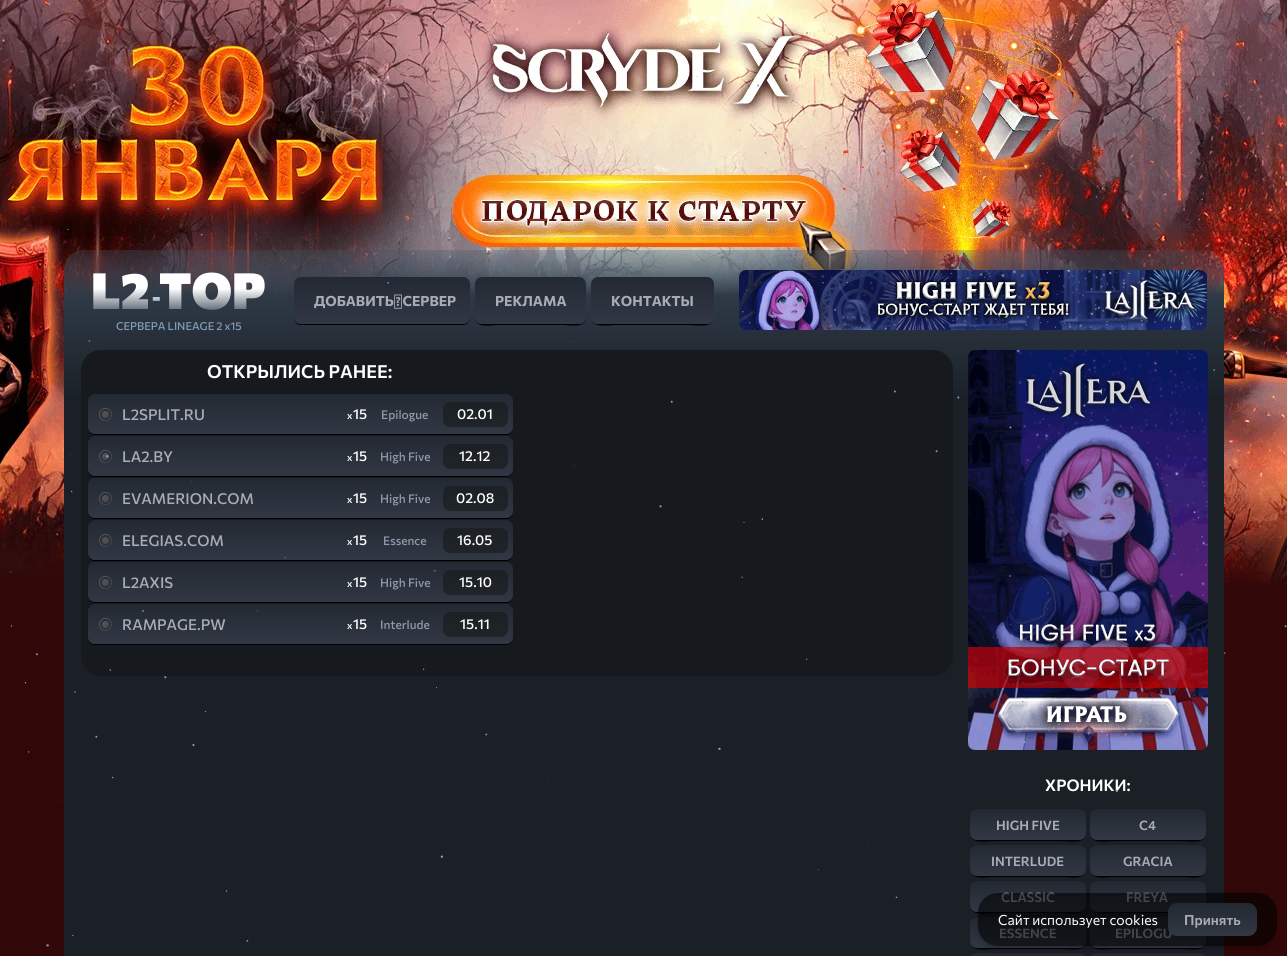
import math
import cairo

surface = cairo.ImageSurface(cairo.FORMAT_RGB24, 1287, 956)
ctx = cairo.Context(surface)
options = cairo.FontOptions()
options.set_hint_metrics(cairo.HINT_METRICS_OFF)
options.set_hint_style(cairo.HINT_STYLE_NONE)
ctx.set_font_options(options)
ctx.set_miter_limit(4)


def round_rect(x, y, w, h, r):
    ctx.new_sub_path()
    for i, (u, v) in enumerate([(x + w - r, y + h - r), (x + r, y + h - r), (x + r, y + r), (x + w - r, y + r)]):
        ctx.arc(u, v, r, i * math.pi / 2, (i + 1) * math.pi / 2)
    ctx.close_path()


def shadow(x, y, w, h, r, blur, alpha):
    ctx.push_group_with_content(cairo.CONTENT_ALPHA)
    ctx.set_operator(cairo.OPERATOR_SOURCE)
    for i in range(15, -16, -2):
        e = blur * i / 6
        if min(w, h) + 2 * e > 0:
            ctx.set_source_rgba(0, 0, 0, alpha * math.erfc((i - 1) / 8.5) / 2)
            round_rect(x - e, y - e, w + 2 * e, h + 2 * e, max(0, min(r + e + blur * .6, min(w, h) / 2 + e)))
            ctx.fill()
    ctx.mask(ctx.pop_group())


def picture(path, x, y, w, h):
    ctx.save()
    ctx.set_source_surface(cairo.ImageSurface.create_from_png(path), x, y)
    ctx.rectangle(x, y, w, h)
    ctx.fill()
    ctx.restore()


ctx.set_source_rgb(0.192, 0.031, 0.031)
ctx.paint()
picture("img1.png", 0, 0, 1287, 584)
gradient = cairo.LinearGradient(644, 250, 644, 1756)
gradient.add_color_stop_rgba(0, 0.255, 0.325, 0.4, 0.3)
gradient.add_color_stop_rgba(0.03, 0.184, 0.227, 0.275, 1)
gradient.add_color_stop_rgba(0.1, 0.102, 0.125, 0.149, 1)
ctx.set_source(gradient)
round_rect(64, 250, 1160, 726, 20)
ctx.fill()
ctx.select_font_face("Commissioner Black")
ctx.set_font_size(50)
gradient = cairo.LinearGradient(121, 258, 121, 319)
gradient.add_color_stop_rgba(0, 1, 1, 1, 1)
gradient.add_color_stop_rgba(0.5, 1, 1, 1, 1)
gradient.add_color_stop_rgba(1, 0.153, 0.2, 0.267, 1)
ctx.set_source(gradient)
ctx.move_to(91, 309)
ctx.show_text("L2")
ctx.set_font_size(20)
gradient = cairo.LinearGradient(156, 285, 156, 309)
gradient.add_color_stop_rgba(0, 1, 1, 1, 1)
gradient.add_color_stop_rgba(1, 0.506, 0.604, 0.71, 1)
ctx.set_source(gradient)
ctx.move_to(152, 305)
ctx.show_text("-")
ctx.set_font_size(50)
gradient = cairo.LinearGradient(212, 258, 212, 319)
gradient.add_color_stop_rgba(0, 1, 1, 1, 1)
gradient.add_color_stop_rgba(0.5, 1, 1, 1, 1)
gradient.add_color_stop_rgba(1, 0.153, 0.2, 0.267, 1)
ctx.set_source(gradient)
ctx.move_to(159, 309)
ctx.show_text("TOP")
ctx.select_font_face("Commissioner Medium")
ctx.set_font_size(11)
ctx.set_source_rgb(0.506, 0.604, 0.71)
ctx.move_to(116, 330)
ctx.show_text("СЕРВЕРА LINEAGE 2 x15")
ctx.set_source_rgb(0, 0, 0)
ctx.new_path()
ctx.move_to(294, 317)
ctx.line_to(294, 318)
ctx.curve_to(294, 322, 297, 325, 301, 325)
ctx.line_to(463, 325)
ctx.curve_to(467, 325, 470, 322, 470, 318)
ctx.line_to(470, 317)
ctx.curve_to(470, 321, 467, 324, 463, 324)
ctx.line_to(301, 324)
ctx.curve_to(297, 324, 294, 321, 294, 317)
ctx.close_path()
ctx.fill()
gradient = cairo.LinearGradient(382, 324, 382, 239)
gradient.add_color_stop_rgba(0, 0.192, 0.22, 0.267, 1)
gradient.add_color_stop_rgba(1, 0.094, 0.114, 0.141, 1)
ctx.set_source(gradient)
round_rect(294, 277, 176, 47, 7)
ctx.fill()
ctx.select_font_face("Commissioner", cairo.FONT_SLANT_NORMAL, cairo.FONT_WEIGHT_BOLD)
ctx.set_font_size(14)
ctx.set_source_rgb(0.663, 0.671, 0.71)
ctx.move_to(314, 306)
ctx.show_text("ДОБАВИТЬ СЕРВЕР")
ctx.set_source_rgb(0, 0, 0)
ctx.new_path()
ctx.move_to(475, 317)
ctx.curve_to(475, 329, 491, 325, 498, 325)
ctx.line_to(563, 325)
ctx.curve_to(570, 325, 586, 329, 586, 317)
ctx.curve_to(586, 321, 583, 324, 579, 324)
ctx.line_to(482, 324)
ctx.curve_to(478, 324, 475, 321, 475, 317)
ctx.close_path()
ctx.fill()
gradient = cairo.LinearGradient(531, 324, 531, 239)
gradient.add_color_stop_rgba(0, 0.192, 0.22, 0.267, 1)
gradient.add_color_stop_rgba(1, 0.094, 0.114, 0.141, 1)
ctx.set_source(gradient)
round_rect(475, 277, 111, 47, 7)
ctx.fill()
ctx.set_source_rgb(0.663, 0.671, 0.71)
ctx.move_to(495, 306)
ctx.show_text("РЕКЛАМА")
ctx.set_source_rgb(0, 0, 0)
ctx.new_path()
ctx.move_to(591, 317)
ctx.curve_to(591, 329, 609, 325, 616, 325)
ctx.line_to(689, 325)
ctx.curve_to(696, 325, 714, 329, 714, 317)
ctx.curve_to(714, 321, 711, 324, 707, 324)
ctx.line_to(598, 324)
ctx.curve_to(594, 324, 591, 321, 591, 317)
ctx.close_path()
ctx.fill()
gradient = cairo.LinearGradient(653, 324, 653, 239)
gradient.add_color_stop_rgba(0, 0.192, 0.22, 0.267, 1)
gradient.add_color_stop_rgba(1, 0.094, 0.114, 0.141, 1)
ctx.set_source(gradient)
round_rect(591, 277, 123, 47, 7)
ctx.fill()
ctx.set_source_rgb(0.663, 0.671, 0.71)
ctx.move_to(611, 306)
ctx.show_text("КОНТАКТЫ")
picture("img3.png", 739, 270, 468, 60)
ctx.set_source_rgb(0.086, 0.102, 0.118)
round_rect(81, 350, 872, 326, 20)
ctx.fill()
ctx.select_font_face("Commissioner SemiBold")
ctx.set_font_size(18)
ctx.set_source_rgb(1, 1, 1)
ctx.move_to(207, 378)
ctx.show_text("ОТКРЫЛИСЬ РАНЕЕ:")
ctx.set_source_rgb(0, 0, 0)
ctx.new_path()
ctx.move_to(88, 427)
ctx.curve_to(88, 431, 90, 435, 95, 435)
ctx.line_to(506, 435)
ctx.curve_to(511, 435, 513, 431, 513, 427)
ctx.curve_to(513, 431, 510, 434, 506, 434)
ctx.line_to(95, 434)
ctx.curve_to(91, 434, 88, 431, 88, 427)
ctx.close_path()
ctx.fill()
gradient = cairo.LinearGradient(301, 434, 301, 362)
gradient.add_color_stop_rgba(0, 0.192, 0.22, 0.267, 1)
gradient.add_color_stop_rgba(1, 0.094, 0.114, 0.141, 1)
ctx.set_source(gradient)
round_rect(88, 394, 425, 40, 7)
ctx.fill()
picture("img4.png", 99, 408, 13, 13)
ctx.select_font_face("Commissioner Medium")
ctx.set_font_size(15)
ctx.set_source_rgb(0.663, 0.671, 0.71)
ctx.move_to(122, 420)
ctx.show_text("L2SPLIT.RU")
ctx.set_font_size(10)
ctx.set_source_rgb(1, 1, 1)
ctx.move_to(347, 419)
ctx.show_text("x")
ctx.set_font_size(14)
ctx.move_to(353, 419)
ctx.show_text("15")
ctx.set_font_size(12)
ctx.set_source_rgb(0.549, 0.604, 0.663)
ctx.move_to(381, 419)
ctx.show_text("Epilogue")
ctx.set_source_rgba(0.09, 0.098, 0.102, 0.6)
round_rect(443, 402, 65, 25, 7)
ctx.fill()
ctx.set_font_size(14)
ctx.set_source_rgb(1, 1, 1)
ctx.move_to(457, 419)
ctx.show_text("02.01")
ctx.set_source_rgb(0, 0, 0)
ctx.new_path()
ctx.move_to(88, 469)
ctx.curve_to(88, 473, 90, 477, 95, 477)
ctx.line_to(506, 477)
ctx.curve_to(511, 477, 513, 473, 513, 469)
ctx.curve_to(513, 473, 510, 476, 506, 476)
ctx.line_to(95, 476)
ctx.curve_to(91, 476, 88, 473, 88, 469)
ctx.close_path()
ctx.fill()
gradient = cairo.LinearGradient(301, 476, 301, 404)
gradient.add_color_stop_rgba(0, 0.192, 0.22, 0.267, 1)
gradient.add_color_stop_rgba(1, 0.094, 0.114, 0.141, 1)
ctx.set_source(gradient)
round_rect(88, 436, 425, 40, 7)
ctx.fill()
picture("img4.png", 99, 450, 13, 13)
ctx.set_font_size(15)
ctx.set_source_rgb(0.663, 0.671, 0.71)
ctx.move_to(122, 462)
ctx.show_text("LA2.BY")
ctx.set_font_size(10)
ctx.set_source_rgb(1, 1, 1)
ctx.move_to(347, 461)
ctx.show_text("x")
ctx.set_font_size(14)
ctx.move_to(353, 461)
ctx.show_text("15")
ctx.set_font_size(12)
ctx.set_source_rgb(0.549, 0.604, 0.663)
ctx.move_to(380, 461)
ctx.show_text("High Five")
ctx.set_source_rgba(0.09, 0.098, 0.102, 0.6)
round_rect(443, 444, 65, 25, 7)
ctx.fill()
ctx.set_font_size(14)
ctx.set_source_rgb(1, 1, 1)
ctx.move_to(459, 461)
ctx.show_text("12.12")
ctx.set_source_rgb(0, 0, 0)
ctx.new_path()
ctx.move_to(88, 511)
ctx.curve_to(88, 515, 90, 519, 95, 519)
ctx.line_to(506, 519)
ctx.curve_to(511, 519, 513, 515, 513, 511)
ctx.curve_to(513, 515, 510, 518, 506, 518)
ctx.line_to(95, 518)
ctx.curve_to(91, 518, 88, 515, 88, 511)
ctx.close_path()
ctx.fill()
gradient = cairo.LinearGradient(301, 518, 301, 446)
gradient.add_color_stop_rgba(0, 0.192, 0.22, 0.267, 1)
gradient.add_color_stop_rgba(1, 0.094, 0.114, 0.141, 1)
ctx.set_source(gradient)
round_rect(88, 478, 425, 40, 7)
ctx.fill()
picture("img4.png", 99, 492, 13, 13)
ctx.set_font_size(15)
ctx.set_source_rgb(0.663, 0.671, 0.71)
ctx.move_to(122, 504)
ctx.show_text("EVAMERION.COM")
ctx.set_font_size(10)
ctx.set_source_rgb(1, 1, 1)
ctx.move_to(347, 503)
ctx.show_text("x")
ctx.set_font_size(14)
ctx.move_to(353, 503)
ctx.show_text("15")
ctx.set_font_size(12)
ctx.set_source_rgb(0.549, 0.604, 0.663)
ctx.move_to(380, 503)
ctx.show_text("High Five")
ctx.set_source_rgba(0.09, 0.098, 0.102, 0.6)
round_rect(443, 486, 65, 25, 7)
ctx.fill()
ctx.set_font_size(14)
ctx.set_source_rgb(1, 1, 1)
ctx.move_to(456, 503)
ctx.show_text("02.08")
ctx.set_source_rgb(0, 0, 0)
ctx.new_path()
ctx.move_to(88, 553)
ctx.curve_to(88, 557, 90, 561, 95, 561)
ctx.line_to(506, 561)
ctx.curve_to(511, 561, 513, 557, 513, 553)
ctx.curve_to(513, 557, 510, 560, 506, 560)
ctx.line_to(95, 560)
ctx.curve_to(91, 560, 88, 557, 88, 553)
ctx.close_path()
ctx.fill()
gradient = cairo.LinearGradient(301, 560, 301, 488)
gradient.add_color_stop_rgba(0, 0.192, 0.22, 0.267, 1)
gradient.add_color_stop_rgba(1, 0.094, 0.114, 0.141, 1)
ctx.set_source(gradient)
round_rect(88, 520, 425, 40, 7)
ctx.fill()
picture("img4.png", 99, 534, 13, 13)
ctx.set_font_size(15)
ctx.set_source_rgb(0.663, 0.671, 0.71)
ctx.move_to(122, 546)
ctx.show_text("ELEGIAS.COM")
ctx.set_font_size(10)
ctx.set_source_rgb(1, 1, 1)
ctx.move_to(347, 545)
ctx.show_text("x")
ctx.set_font_size(14)
ctx.move_to(353, 545)
ctx.show_text("15")
ctx.set_font_size(12)
ctx.set_source_rgb(0.549, 0.604, 0.663)
ctx.move_to(383, 545)
ctx.show_text("Essence")
ctx.set_source_rgba(0.09, 0.098, 0.102, 0.6)
round_rect(443, 528, 65, 25, 7)
ctx.fill()
ctx.set_font_size(14)
ctx.set_source_rgb(1, 1, 1)
ctx.move_to(457, 545)
ctx.show_text("16.05")
ctx.set_source_rgb(0, 0, 0)
ctx.new_path()
ctx.move_to(88, 595)
ctx.curve_to(88, 599, 90, 603, 95, 603)
ctx.line_to(506, 603)
ctx.curve_to(511, 603, 513, 599, 513, 595)
ctx.curve_to(513, 599, 510, 602, 506, 602)
ctx.line_to(95, 602)
ctx.curve_to(91, 602, 88, 599, 88, 595)
ctx.close_path()
ctx.fill()
gradient = cairo.LinearGradient(301, 602, 301, 530)
gradient.add_color_stop_rgba(0, 0.192, 0.22, 0.267, 1)
gradient.add_color_stop_rgba(1, 0.094, 0.114, 0.141, 1)
ctx.set_source(gradient)
round_rect(88, 562, 425, 40, 7)
ctx.fill()
picture("img4.png", 99, 576, 13, 13)
ctx.set_font_size(15)
ctx.set_source_rgb(0.663, 0.671, 0.71)
ctx.move_to(122, 588)
ctx.show_text("L2AXIS")
ctx.set_font_size(10)
ctx.set_source_rgb(1, 1, 1)
ctx.move_to(347, 587)
ctx.show_text("x")
ctx.set_font_size(14)
ctx.move_to(353, 587)
ctx.show_text("15")
ctx.set_font_size(12)
ctx.set_source_rgb(0.549, 0.604, 0.663)
ctx.move_to(380, 587)
ctx.show_text("High Five")
ctx.set_source_rgba(0.09, 0.098, 0.102, 0.6)
round_rect(443, 570, 65, 25, 7)
ctx.fill()
ctx.set_font_size(14)
ctx.set_source_rgb(1, 1, 1)
ctx.move_to(459, 587)
ctx.show_text("15.10")
ctx.set_source_rgb(0, 0, 0)
ctx.new_path()
ctx.move_to(88, 637)
ctx.curve_to(88, 641, 90, 645, 95, 645)
ctx.line_to(506, 645)
ctx.curve_to(511, 645, 513, 641, 513, 637)
ctx.curve_to(513, 641, 510, 644, 506, 644)
ctx.line_to(95, 644)
ctx.curve_to(91, 644, 88, 641, 88, 637)
ctx.close_path()
ctx.fill()
gradient = cairo.LinearGradient(301, 644, 301, 572)
gradient.add_color_stop_rgba(0, 0.192, 0.22, 0.267, 1)
gradient.add_color_stop_rgba(1, 0.094, 0.114, 0.141, 1)
ctx.set_source(gradient)
round_rect(88, 604, 425, 40, 7)
ctx.fill()
picture("img4.png", 99, 618, 13, 13)
ctx.set_font_size(15)
ctx.set_source_rgb(0.663, 0.671, 0.71)
ctx.move_to(122, 630)
ctx.show_text("RAMPAGE.PW")
ctx.set_font_size(10)
ctx.set_source_rgb(1, 1, 1)
ctx.move_to(347, 629)
ctx.show_text("x")
ctx.set_font_size(14)
ctx.move_to(353, 629)
ctx.show_text("15")
ctx.set_font_size(12)
ctx.set_source_rgb(0.549, 0.604, 0.663)
ctx.move_to(380, 629)
ctx.show_text("Interlude")
ctx.set_source_rgba(0.09, 0.098, 0.102, 0.6)
round_rect(443, 612, 65, 25, 7)
ctx.fill()
ctx.set_font_size(14)
ctx.set_source_rgb(1, 1, 1)
ctx.move_to(460, 629)
ctx.show_text("15.11")
picture("img5.png", 968, 350, 240, 400)
ctx.select_font_face("Commissioner SemiBold")
ctx.set_font_size(16)
ctx.move_to(1045, 791)
ctx.show_text("ХРОНИКИ:")
ctx.set_source_rgb(0, 0, 0)
ctx.new_path()
ctx.move_to(970, 833)
ctx.curve_to(970, 845, 987, 841, 994, 841)
ctx.line_to(1062, 841)
ctx.curve_to(1069, 841, 1086, 845, 1086, 833)
ctx.curve_to(1086, 837, 1083, 840, 1079, 840)
ctx.line_to(977, 840)
ctx.curve_to(973, 840, 970, 837, 970, 833)
ctx.close_path()
ctx.fill()
gradient = cairo.LinearGradient(1028, 840, 1028, 784)
gradient.add_color_stop_rgba(0, 0.192, 0.22, 0.267, 1)
gradient.add_color_stop_rgba(1, 0.094, 0.114, 0.141, 1)
ctx.set_source(gradient)
round_rect(970, 809, 116, 31, 7)
ctx.fill()
ctx.set_font_size(13)
ctx.set_source_rgb(0.663, 0.671, 0.71)
ctx.move_to(996, 830)
ctx.show_text("HIGH FIVE")
ctx.set_source_rgb(0, 0, 0)
ctx.new_path()
ctx.move_to(970, 869)
ctx.curve_to(970, 881, 987, 877, 994, 877)
ctx.line_to(1062, 877)
ctx.curve_to(1069, 877, 1086, 881, 1086, 869)
ctx.curve_to(1086, 873, 1083, 876, 1079, 876)
ctx.line_to(977, 876)
ctx.curve_to(973, 876, 970, 873, 970, 869)
ctx.close_path()
ctx.fill()
gradient = cairo.LinearGradient(1028, 876, 1028, 820)
gradient.add_color_stop_rgba(0, 0.192, 0.22, 0.267, 1)
gradient.add_color_stop_rgba(1, 0.094, 0.114, 0.141, 1)
ctx.set_source(gradient)
round_rect(970, 845, 116, 31, 7)
ctx.fill()
ctx.set_source_rgb(0.663, 0.671, 0.71)
ctx.move_to(991, 866)
ctx.show_text("INTERLUDE")
ctx.set_source_rgb(0, 0, 0)
ctx.new_path()
ctx.move_to(970, 905)
ctx.curve_to(970, 917, 987, 913, 994, 913)
ctx.line_to(1062, 913)
ctx.curve_to(1069, 913, 1086, 917, 1086, 905)
ctx.curve_to(1086, 909, 1083, 912, 1079, 912)
ctx.line_to(977, 912)
ctx.curve_to(973, 912, 970, 909, 970, 905)
ctx.close_path()
ctx.fill()
gradient = cairo.LinearGradient(1028, 912, 1028, 856)
gradient.add_color_stop_rgba(0, 0.192, 0.22, 0.267, 1)
gradient.add_color_stop_rgba(1, 0.094, 0.114, 0.141, 1)
ctx.set_source(gradient)
round_rect(970, 881, 116, 31, 7)
ctx.fill()
ctx.set_source_rgb(0.663, 0.671, 0.71)
ctx.move_to(1001, 902)
ctx.show_text("CLASSIC")
ctx.set_source_rgb(0, 0, 0)
ctx.new_path()
ctx.move_to(970, 941)
ctx.curve_to(970, 953, 987, 949, 994, 949)
ctx.line_to(1062, 949)
ctx.curve_to(1069, 949, 1086, 953, 1086, 941)
ctx.curve_to(1086, 945, 1083, 948, 1079, 948)
ctx.line_to(977, 948)
ctx.curve_to(973, 948, 970, 945, 970, 941)
ctx.close_path()
ctx.fill()
gradient = cairo.LinearGradient(1028, 948, 1028, 892)
gradient.add_color_stop_rgba(0, 0.192, 0.22, 0.267, 1)
gradient.add_color_stop_rgba(1, 0.094, 0.114, 0.141, 1)
ctx.set_source(gradient)
round_rect(970, 917, 116, 31, 7)
ctx.fill()
ctx.set_source_rgb(0.663, 0.671, 0.71)
ctx.move_to(999, 938)
ctx.show_text("ESSENCE")
ctx.set_source_rgb(0, 0, 0)
ctx.new_path()
ctx.move_to(1090, 833)
ctx.curve_to(1090, 845, 1107, 841, 1114, 841)
ctx.line_to(1182, 841)
ctx.curve_to(1189, 841, 1206, 845, 1206, 833)
ctx.curve_to(1206, 837, 1203, 840, 1199, 840)
ctx.line_to(1097, 840)
ctx.curve_to(1093, 840, 1090, 837, 1090, 833)
ctx.close_path()
ctx.fill()
gradient = cairo.LinearGradient(1148, 840, 1148, 784)
gradient.add_color_stop_rgba(0, 0.192, 0.22, 0.267, 1)
gradient.add_color_stop_rgba(1, 0.094, 0.114, 0.141, 1)
ctx.set_source(gradient)
round_rect(1090, 809, 116, 31, 7)
ctx.fill()
ctx.set_source_rgb(0.663, 0.671, 0.71)
ctx.move_to(1139, 830)
ctx.show_text("C4")
ctx.set_source_rgb(0, 0, 0)
ctx.new_path()
ctx.move_to(1090, 869)
ctx.curve_to(1090, 881, 1107, 877, 1114, 877)
ctx.line_to(1182, 877)
ctx.curve_to(1189, 877, 1206, 881, 1206, 869)
ctx.curve_to(1206, 873, 1203, 876, 1199, 876)
ctx.line_to(1097, 876)
ctx.curve_to(1093, 876, 1090, 873, 1090, 869)
ctx.close_path()
ctx.fill()
gradient = cairo.LinearGradient(1148, 876, 1148, 820)
gradient.add_color_stop_rgba(0, 0.192, 0.22, 0.267, 1)
gradient.add_color_stop_rgba(1, 0.094, 0.114, 0.141, 1)
ctx.set_source(gradient)
round_rect(1090, 845, 116, 31, 7)
ctx.fill()
ctx.set_source_rgb(0.663, 0.671, 0.71)
ctx.move_to(1123, 866)
ctx.show_text("GRACIA")
ctx.set_source_rgb(0, 0, 0)
ctx.new_path()
ctx.move_to(1090, 905)
ctx.curve_to(1090, 917, 1107, 913, 1114, 913)
ctx.line_to(1182, 913)
ctx.curve_to(1189, 913, 1206, 917, 1206, 905)
ctx.curve_to(1206, 909, 1203, 912, 1199, 912)
ctx.line_to(1097, 912)
ctx.curve_to(1093, 912, 1090, 909, 1090, 905)
ctx.close_path()
ctx.fill()
gradient = cairo.LinearGradient(1148, 912, 1148, 856)
gradient.add_color_stop_rgba(0, 0.192, 0.22, 0.267, 1)
gradient.add_color_stop_rgba(1, 0.094, 0.114, 0.141, 1)
ctx.set_source(gradient)
round_rect(1090, 881, 116, 31, 7)
ctx.fill()
ctx.set_source_rgb(0.663, 0.671, 0.71)
ctx.move_to(1126, 902)
ctx.show_text("FREYA")
ctx.set_source_rgb(0, 0, 0)
ctx.new_path()
ctx.move_to(1090, 941)
ctx.curve_to(1090, 953, 1107, 949, 1114, 949)
ctx.line_to(1182, 949)
ctx.curve_to(1189, 949, 1206, 953, 1206, 941)
ctx.curve_to(1206, 945, 1203, 948, 1199, 948)
ctx.line_to(1097, 948)
ctx.curve_to(1093, 948, 1090, 945, 1090, 941)
ctx.close_path()
ctx.fill()
gradient = cairo.LinearGradient(1148, 948, 1148, 892)
gradient.add_color_stop_rgba(0, 0.192, 0.22, 0.267, 1)
gradient.add_color_stop_rgba(1, 0.094, 0.114, 0.141, 1)
ctx.set_source(gradient)
round_rect(1090, 917, 116, 31, 7)
ctx.fill()
ctx.set_source_rgb(0.663, 0.671, 0.71)
ctx.move_to(1115, 938)
ctx.show_text("EPILOGU")
picture("img2.png", 10, 3, 1277, 944)
gradient = cairo.LinearGradient(1028, 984, 1028, 928)
gradient.add_color_stop_rgba(0, 0.192, 0.22, 0.267, 1)
gradient.add_color_stop_rgba(1, 0.094, 0.114, 0.141, 1)
ctx.set_source(gradient)
round_rect(970, 953, 116, 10, 7)
ctx.fill()
gradient = cairo.LinearGradient(1148, 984, 1148, 928)
gradient.add_color_stop_rgba(0, 0.192, 0.22, 0.267, 1)
gradient.add_color_stop_rgba(1, 0.094, 0.114, 0.141, 1)
ctx.set_source(gradient)
round_rect(1090, 953, 116, 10, 7)
ctx.fill()
ctx.save()
ctx.set_fill_rule(cairo.FILL_RULE_EVEN_ODD)
ctx.new_path()
ctx.move_to(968, 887)
ctx.line_to(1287, 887)
ctx.line_to(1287, 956)
ctx.line_to(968, 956)
ctx.close_path()
ctx.move_to(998, 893)
ctx.line_to(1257, 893)
ctx.curve_to(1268, 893, 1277, 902, 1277, 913)
ctx.line_to(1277, 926)
ctx.curve_to(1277, 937, 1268, 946, 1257, 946)
ctx.line_to(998, 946)
ctx.curve_to(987, 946, 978, 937, 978, 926)
ctx.line_to(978, 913)
ctx.curve_to(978, 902, 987, 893, 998, 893)
ctx.close_path()
ctx.clip()
ctx.set_source_rgb(0, 0, 0)
shadow(978, 897, 299, 53, 20, 3, 0.2)
ctx.restore()
ctx.set_source_rgba(0, 0, 0, 0.6)
round_rect(978, 893, 299, 53, 20)
ctx.fill()
ctx.select_font_face("Commissioner")
ctx.set_font_size(14)
ctx.set_source_rgb(1, 1, 1)
ctx.move_to(998, 925)
ctx.show_text("Сайт использует cookies")
gradient = cairo.LinearGradient(1213, 936, 1213, 877)
gradient.add_color_stop_rgba(0, 0.192, 0.22, 0.267, 1)
gradient.add_color_stop_rgba(1, 0.094, 0.114, 0.141, 1)
ctx.set_source(gradient)
round_rect(1168, 903, 89, 33, 9)
ctx.fill()
ctx.select_font_face("Commissioner SemiBold")
ctx.set_source_rgb(0.663, 0.671, 0.71)
ctx.move_to(1184, 925)
ctx.show_text("Принять")
surface.write_to_png("page.png")
